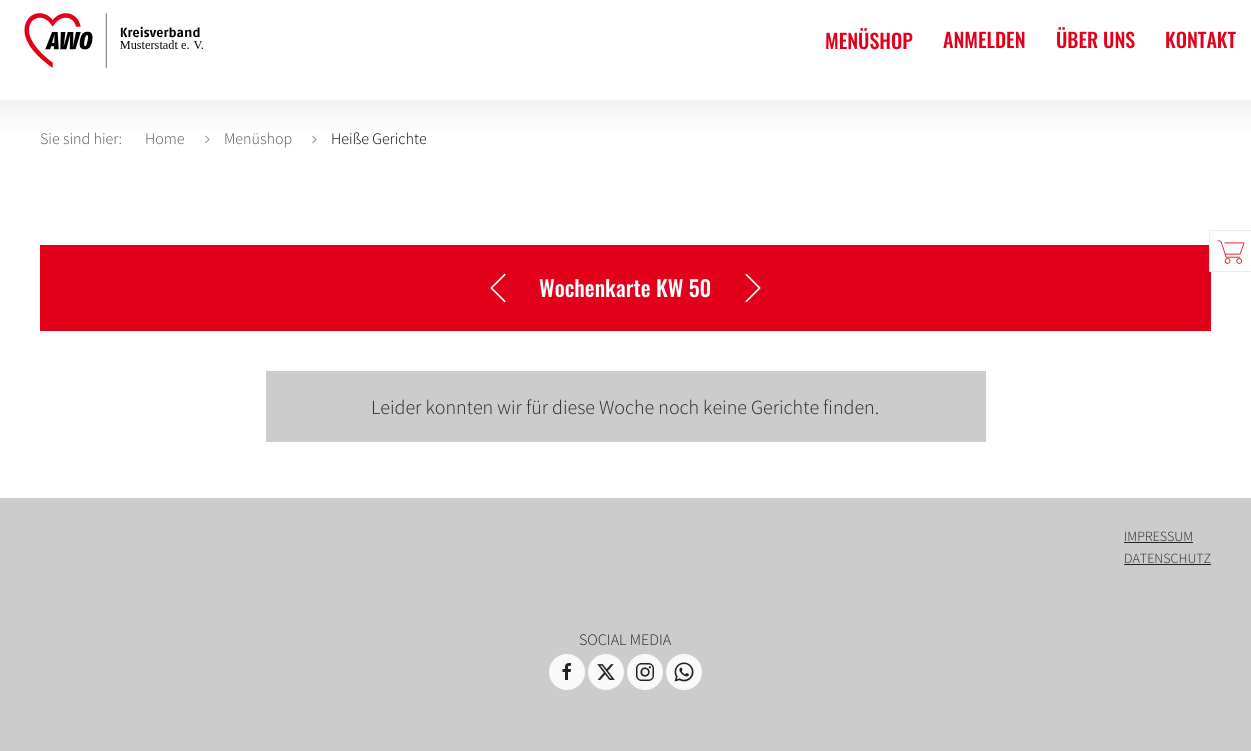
import math
import cairo

surface = cairo.ImageSurface(cairo.FORMAT_RGB24, 1251, 751)
ctx = cairo.Context(surface)
options = cairo.FontOptions()
options.set_hint_metrics(cairo.HINT_METRICS_OFF)
options.set_hint_style(cairo.HINT_STYLE_NONE)
ctx.set_font_options(options)
ctx.set_miter_limit(4)


def picture(path, x, y, w, h):
    ctx.save()
    ctx.set_source_surface(cairo.ImageSurface.create_from_png(path), x, y)
    ctx.rectangle(x, y, w, h)
    ctx.fill()
    ctx.restore()


ctx.set_source_rgb(1, 1, 1)
ctx.paint()
picture("img1.png", 24, 13, 179, 55)
ctx.select_font_face("Oswald Medium")
ctx.set_font_size(20)
ctx.set_source_rgb(0.886, 0, 0.102)
ctx.move_to(825, 49)
ctx.show_text("MENÜSHOP")
ctx.move_to(943, 48)
ctx.show_text("ANMELDEN")
ctx.move_to(1056, 48)
ctx.show_text("ÜBER UNS")
ctx.move_to(1165, 48)
ctx.show_text("KONTAKT")
gradient = cairo.LinearGradient(626, 100, 626, 175)
gradient.add_color_stop_rgba(0, 0.953, 0.953, 0.953, 1)
gradient.add_color_stop_rgba(0.5, 1, 1, 1, 1)
ctx.set_source(gradient)
ctx.rectangle(0, 100, 1251, 30)
ctx.fill()
ctx.select_font_face("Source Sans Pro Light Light")
ctx.set_font_size(16)
ctx.set_source_rgb(0.333, 0.31, 0.29)
ctx.move_to(40, 144)
ctx.show_text("Sie sind hier:")
ctx.move_to(145, 144)
ctx.show_text("Home")
picture("img2.png", 205, 135, 5, 9)
ctx.move_to(224, 144)
ctx.show_text("Menüshop")
picture("img2.png", 312, 135, 5, 9)
ctx.set_source_rgb(0, 0, 0)
ctx.move_to(331, 144)
ctx.show_text("Heiße Gerichte")
ctx.set_source_rgb(0.886, 0, 0.102)
ctx.rectangle(40, 245, 1171, 86)
ctx.fill()
ctx.set_source_rgb(1, 1, 1)
ctx.rectangle(1210, 245, 1, 26)
ctx.fill()
ctx.set_source_rgb(0.937, 0.933, 0.918)
ctx.rectangle(1209, 230, 42, 1)
ctx.fill()
ctx.rectangle(1209, 271, 42, 1)
ctx.fill()
ctx.rectangle(1209, 230, 1, 42)
ctx.fill()
picture("img3.png", 1217, 240, 28, 24)
picture("img4.png", 490, 273, 16, 30)
ctx.select_font_face("Oswald Medium")
ctx.set_font_size(22)
ctx.set_source_rgb(1, 1, 1)
ctx.move_to(539, 297)
ctx.show_text("Wochenkarte KW 50")
picture("img5.png", 745, 273, 16, 30)
ctx.set_source_rgb(0.8, 0.8, 0.8)
ctx.rectangle(266, 371, 720, 71)
ctx.fill()
ctx.select_font_face("Source Sans Pro Light Light")
ctx.set_font_size(20)
ctx.set_source_rgb(0.133, 0.133, 0.133)
ctx.move_to(371, 414)
ctx.show_text("Leider konnten wir für diese Woche noch keine Gerichte finden.")
ctx.set_source_rgb(0.8, 0.8, 0.8)
ctx.rectangle(0, 498, 1251, 253)
ctx.fill()
ctx.set_font_size(14)
ctx.set_source_rgb(0.133, 0.133, 0.133)
ctx.move_to(1124, 541)
ctx.show_text("IMPRESSUM")
ctx.rectangle(1124, 542, 69, 1)
ctx.fill()
ctx.move_to(1124, 563)
ctx.show_text("DATENSCHUTZ")
ctx.rectangle(1124, 564, 87, 1)
ctx.fill()
ctx.set_font_size(16)
ctx.move_to(579, 645)
ctx.show_text("SOCIAL MEDIA")
ctx.set_source_rgb(0.973, 0.973, 0.973)
ctx.new_path()
ctx.arc(567, 672, 18, 0, 2 * math.pi)
ctx.fill()
picture("img6.png", 562, 663, 9, 17)
ctx.arc(606, 672, 18, 0, 2 * math.pi)
ctx.fill()
picture("img7.png", 597, 664, 18, 16)
ctx.arc(645, 672, 18, 0, 2 * math.pi)
ctx.fill()
picture("img8.png", 636, 663, 18, 18)
ctx.arc(684, 672, 18, 0, 2 * math.pi)
ctx.fill()
picture("img9.png", 674, 662, 20, 20)
surface.write_to_png("page.png")
